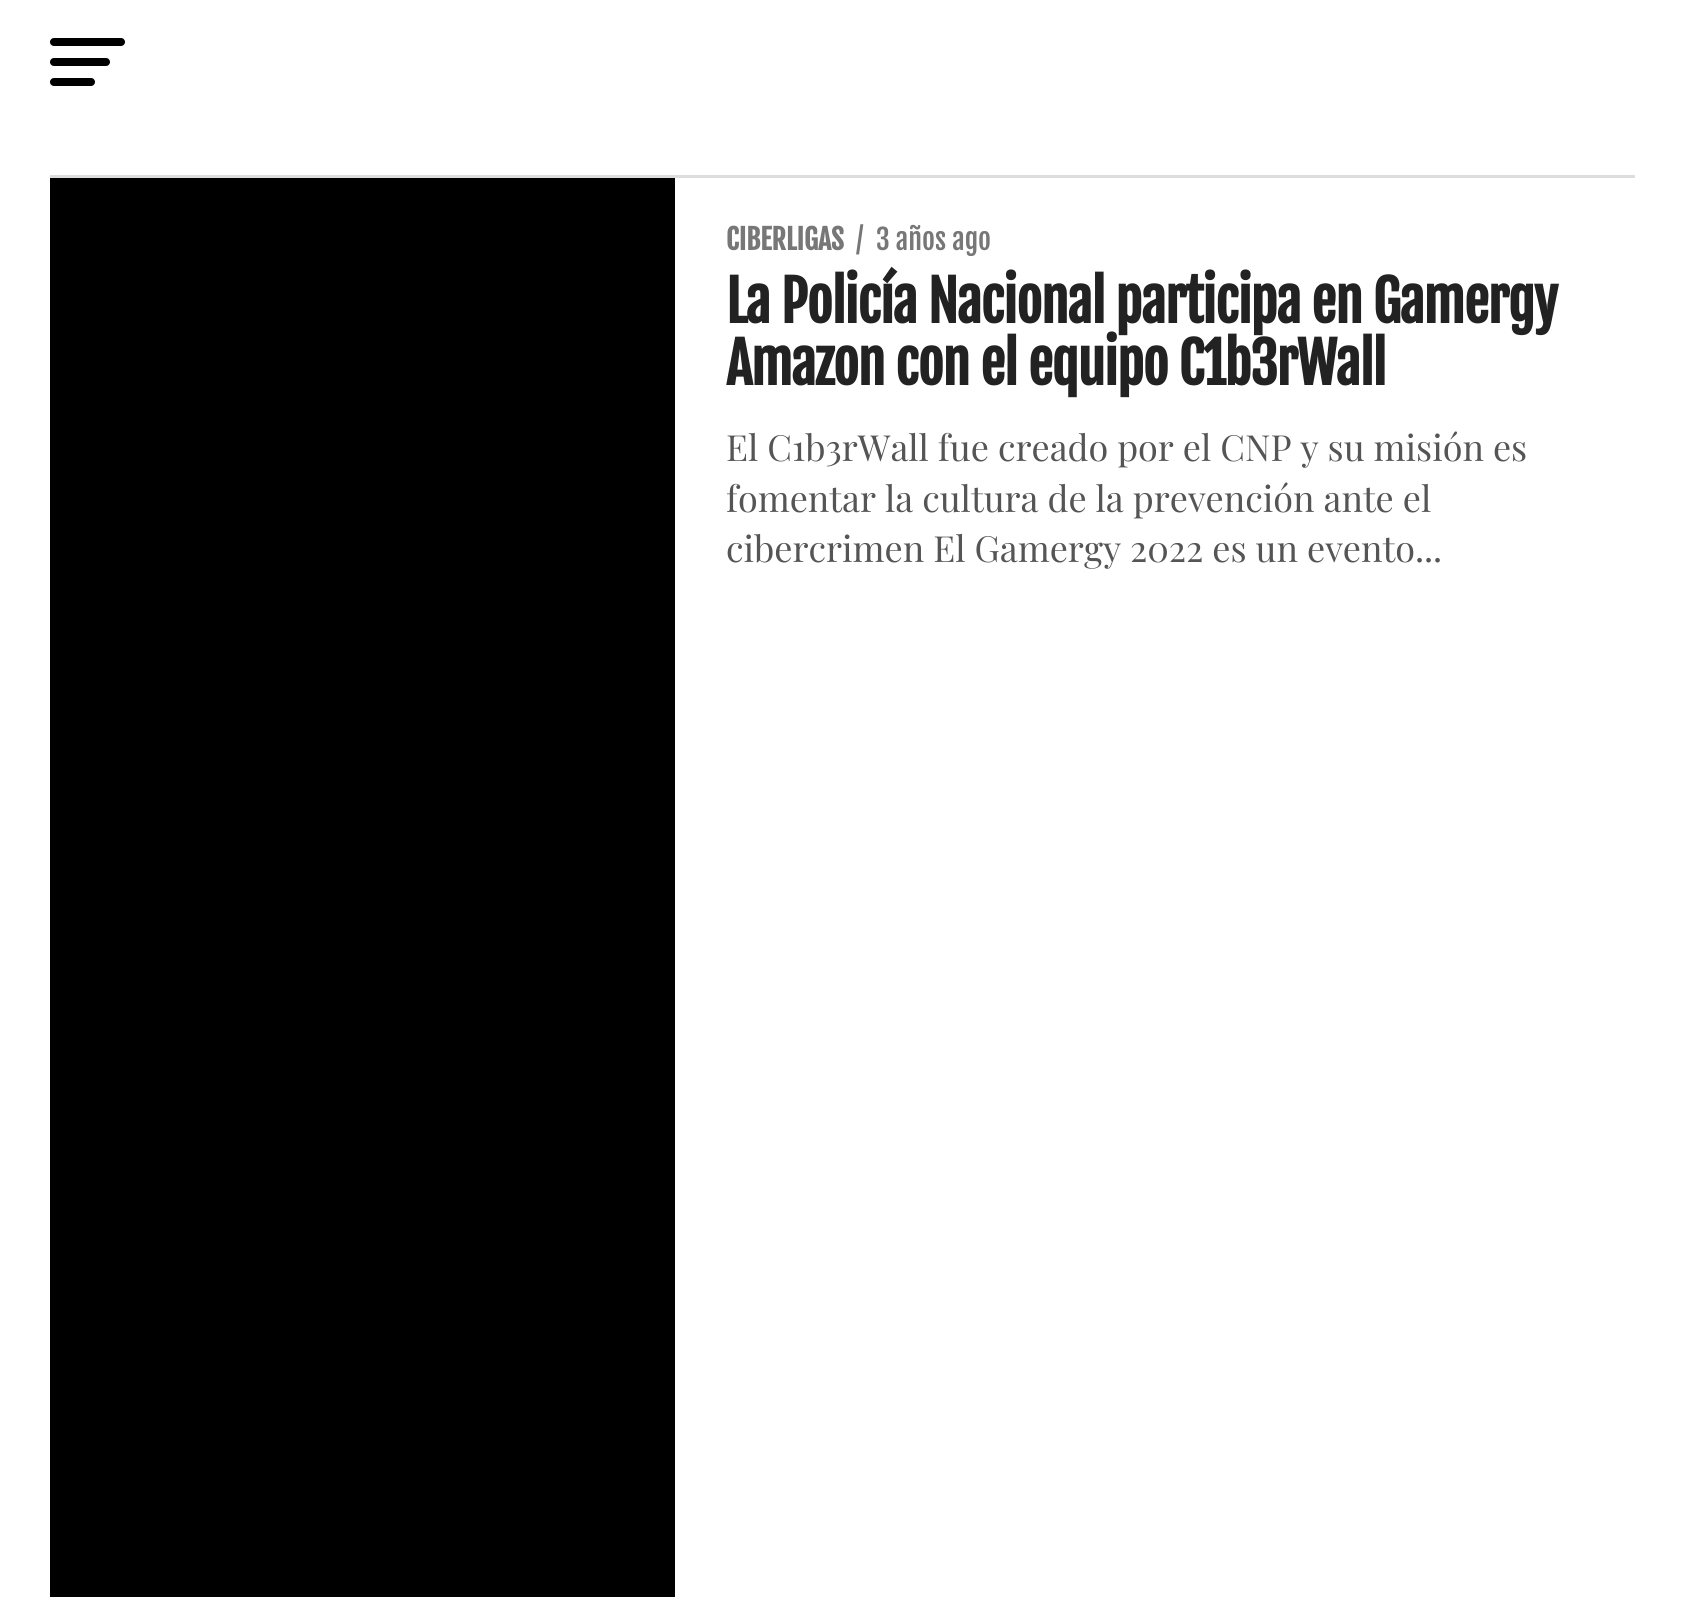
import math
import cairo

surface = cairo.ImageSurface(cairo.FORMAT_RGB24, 1683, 1597)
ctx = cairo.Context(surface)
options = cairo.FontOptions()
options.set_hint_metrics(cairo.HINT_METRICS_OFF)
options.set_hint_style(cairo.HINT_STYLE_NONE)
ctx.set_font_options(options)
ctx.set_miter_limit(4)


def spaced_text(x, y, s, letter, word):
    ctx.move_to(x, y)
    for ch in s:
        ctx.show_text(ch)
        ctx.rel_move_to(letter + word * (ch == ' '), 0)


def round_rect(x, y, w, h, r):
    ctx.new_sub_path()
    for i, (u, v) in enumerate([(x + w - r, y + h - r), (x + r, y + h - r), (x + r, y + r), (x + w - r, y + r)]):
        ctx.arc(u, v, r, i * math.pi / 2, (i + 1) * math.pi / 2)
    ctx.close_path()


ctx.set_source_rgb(1, 1, 1)
ctx.paint()
ctx.set_source_rgb(0, 0, 0)
round_rect(50, 38, 75, 8, 4)
ctx.fill()
round_rect(50, 58, 60, 8, 4)
ctx.fill()
round_rect(50, 78, 45, 8, 4)
ctx.fill()
ctx.set_source_rgb(0.867, 0.867, 0.867)
ctx.rectangle(50, 175, 1585, 3)
ctx.fill()
ctx.set_source_rgb(0, 0, 0)
ctx.rectangle(50, 178, 625, 1419)
ctx.fill()
ctx.select_font_face("Fjalla One", cairo.FONT_SLANT_NORMAL, cairo.FONT_WEIGHT_BOLD)
ctx.set_font_size(28)
ctx.set_source_rgb(0.467, 0.467, 0.467)
ctx.move_to(726, 250)
ctx.show_text("CIBERLIGAS")
ctx.select_font_face("Fjalla One")
ctx.move_to(856, 250)
ctx.show_text("/")
ctx.move_to(876, 250)
ctx.show_text("3 años ago")
ctx.select_font_face("Fjalla One", cairo.FONT_SLANT_NORMAL, cairo.FONT_WEIGHT_BOLD)
ctx.set_font_size(56)
ctx.set_source_rgb(0.133, 0.133, 0.133)
spaced_text(726, 323, "La Policía Nacional participa en Gamergy", -1.1, 0)
spaced_text(726, 385, "Amazon con el equipo C1b3rWall", -1.1, 0)
ctx.select_font_face("Playfair Display")
ctx.set_font_size(36)
ctx.set_source_rgb(0.333, 0.333, 0.333)
ctx.move_to(726, 461)
ctx.show_text("El C1b3rWall fue creado por el CNP y su misión es")
ctx.move_to(726, 512)
ctx.show_text("fomentar la cultura de la prevención ante el")
ctx.move_to(726, 562)
ctx.show_text("cibercrimen El Gamergy 2022 es un evento...")
surface.write_to_png("page.png")
